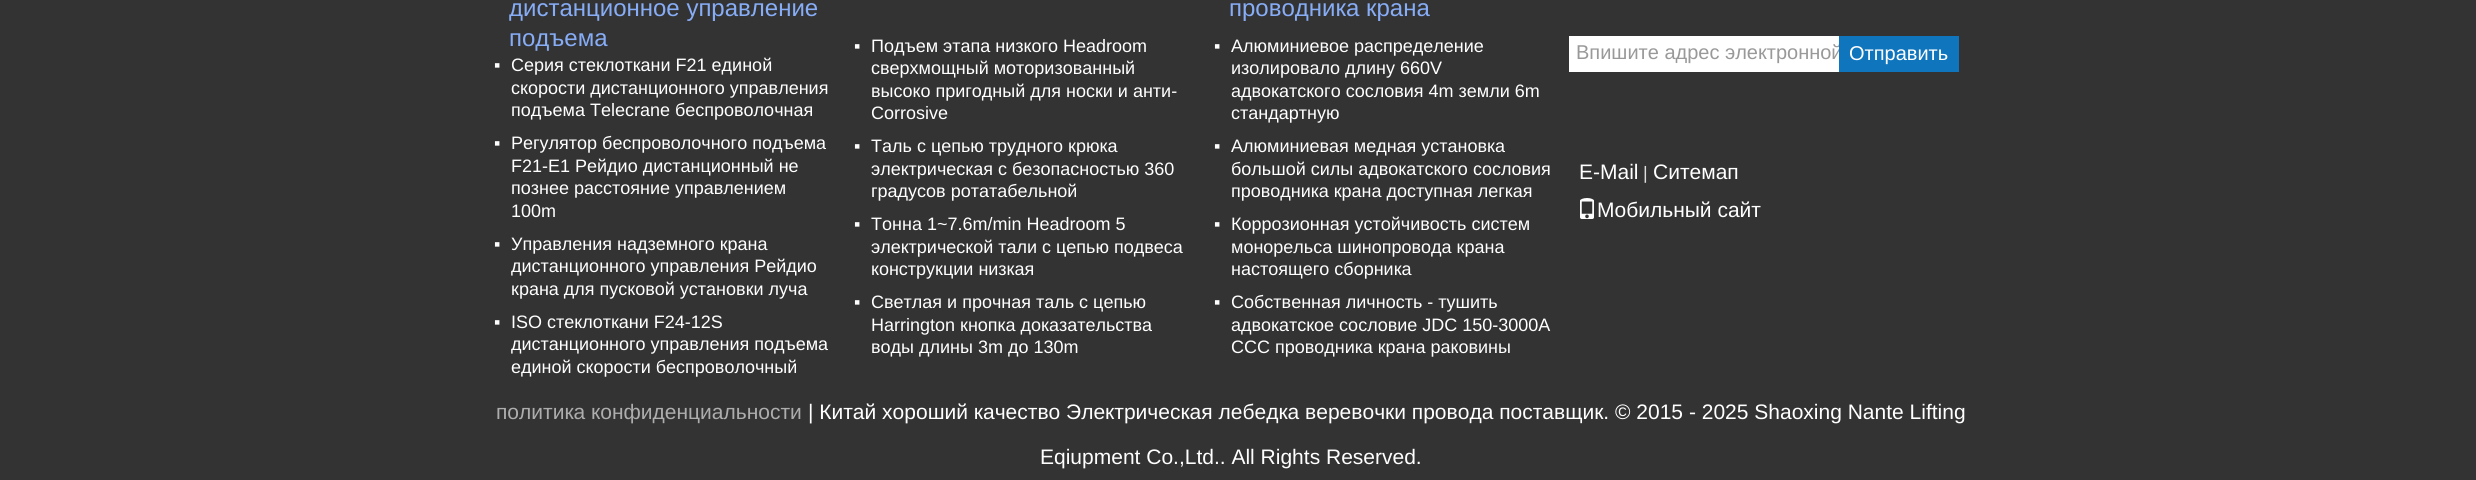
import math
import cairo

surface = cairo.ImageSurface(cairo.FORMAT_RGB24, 2476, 480)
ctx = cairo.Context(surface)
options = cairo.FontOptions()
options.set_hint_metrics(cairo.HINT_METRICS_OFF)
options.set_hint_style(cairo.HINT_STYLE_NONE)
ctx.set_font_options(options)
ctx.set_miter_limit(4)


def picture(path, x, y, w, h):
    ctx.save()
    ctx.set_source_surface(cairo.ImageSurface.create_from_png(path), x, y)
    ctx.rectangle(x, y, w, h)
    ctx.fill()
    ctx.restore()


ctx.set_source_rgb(0.2, 0.2, 0.2)
ctx.paint()
ctx.select_font_face("Liberation Sans")
ctx.set_font_size(24)
ctx.set_source_rgb(0.529, 0.678, 0.965)
ctx.move_to(509, 16)
ctx.show_text("дистанционное управление")
ctx.move_to(509, 46)
ctx.show_text("подъема")
ctx.set_font_size(18)
ctx.set_source_rgb(1, 1, 1)
ctx.move_to(494, 71)
ctx.show_text("▪")
ctx.move_to(511, 71)
ctx.show_text("Серия стеклоткани F21 единой")
ctx.move_to(511, 94)
ctx.show_text("скорости дистанционного управления")
ctx.move_to(511, 116)
ctx.show_text("подъема Telecrane беспроволочная")
ctx.move_to(494, 149)
ctx.show_text("▪")
ctx.move_to(511, 149)
ctx.show_text("Регулятор беспроволочного подъема")
ctx.move_to(511, 172)
ctx.show_text("F21-E1 Рейдио дистанционный не")
ctx.move_to(511, 194)
ctx.show_text("познее расстояние управлением")
ctx.move_to(511, 217)
ctx.show_text("100m")
ctx.move_to(494, 250)
ctx.show_text("▪")
ctx.move_to(511, 250)
ctx.show_text("Управления надземного крана")
ctx.move_to(511, 272)
ctx.show_text("дистанционного управления Рейдио")
ctx.move_to(511, 295)
ctx.show_text("крана для пусковой установки луча")
ctx.move_to(494, 328)
ctx.show_text("▪")
ctx.move_to(511, 328)
ctx.show_text("ISO стеклоткани F24-12S")
ctx.move_to(511, 350)
ctx.show_text("дистанционного управления подъема")
ctx.move_to(511, 373)
ctx.show_text("единой скорости беспроволочный")
ctx.move_to(854, 52)
ctx.show_text("▪")
ctx.move_to(871, 52)
ctx.show_text("Подъем этапа низкого Headroom")
ctx.move_to(871, 74)
ctx.show_text("сверхмощный моторизованный")
ctx.move_to(871, 97)
ctx.show_text("высоко пригодный для носки и анти-")
ctx.move_to(871, 119)
ctx.show_text("Corrosive")
ctx.move_to(854, 152)
ctx.show_text("▪")
ctx.move_to(871, 152)
ctx.show_text("Таль с цепью трудного крюка")
ctx.move_to(871, 175)
ctx.show_text("электрическая с безопасностью 360")
ctx.move_to(871, 197)
ctx.show_text("градусов ротатабельной")
ctx.move_to(854, 230)
ctx.show_text("▪")
ctx.move_to(871, 230)
ctx.show_text("Тонна 1~7.6m/min Headroom 5")
ctx.move_to(871, 253)
ctx.show_text("электрической тали с цепью подвеса")
ctx.move_to(871, 275)
ctx.show_text("конструкции низкая")
ctx.move_to(854, 308)
ctx.show_text("▪")
ctx.move_to(871, 308)
ctx.show_text("Светлая и прочная таль с цепью")
ctx.move_to(871, 331)
ctx.show_text("Harrington кнопка доказательства")
ctx.move_to(871, 353)
ctx.show_text("воды длины 3m до 130m")
ctx.set_font_size(24)
ctx.set_source_rgb(0.529, 0.678, 0.965)
ctx.move_to(1229, 16)
ctx.show_text("проводника крана")
ctx.set_font_size(18)
ctx.set_source_rgb(1, 1, 1)
ctx.move_to(1214, 52)
ctx.show_text("▪")
ctx.move_to(1231, 52)
ctx.show_text("Алюминиевое распределение")
ctx.move_to(1231, 74)
ctx.show_text("изолировало длину 660V")
ctx.move_to(1231, 97)
ctx.show_text("адвокатского сословия 4m земли 6m")
ctx.move_to(1231, 119)
ctx.show_text("стандартную")
ctx.move_to(1214, 152)
ctx.show_text("▪")
ctx.move_to(1231, 152)
ctx.show_text("Алюминиевая медная установка")
ctx.move_to(1231, 175)
ctx.show_text("большой силы адвокатского сословия")
ctx.move_to(1231, 197)
ctx.show_text("проводника крана доступная легкая")
ctx.move_to(1214, 230)
ctx.show_text("▪")
ctx.move_to(1231, 230)
ctx.show_text("Коррозионная устойчивость систем")
ctx.move_to(1231, 253)
ctx.show_text("монорельса шинопровода крана")
ctx.move_to(1231, 275)
ctx.show_text("настоящего сборника")
ctx.move_to(1214, 308)
ctx.show_text("▪")
ctx.move_to(1231, 308)
ctx.show_text("Собственная личность - тушить")
ctx.move_to(1231, 331)
ctx.show_text("адвокатское сословие JDC 150-3000A")
ctx.move_to(1231, 353)
ctx.show_text("CCC проводника крана раковины")
ctx.rectangle(1569, 36, 270, 36)
ctx.fill()
ctx.set_font_size(20)
ctx.set_source_rgb(0.6, 0.6, 0.6)
ctx.move_to(1576, 59)
ctx.show_text("Впишите адрес электронной")
ctx.set_source_rgb(0.059, 0.459, 0.741)
ctx.rectangle(1839, 36, 120, 36)
ctx.fill()
ctx.set_source_rgb(1, 1, 1)
ctx.move_to(1849, 60)
ctx.show_text("Отправить")
ctx.set_font_size(21)
ctx.move_to(1579, 179)
ctx.show_text("E-Mail")
ctx.set_font_size(18)
ctx.set_source_rgb(0.867, 0.867, 0.867)
ctx.move_to(1643, 179)
ctx.show_text("|")
ctx.set_font_size(21)
ctx.set_source_rgb(1, 1, 1)
ctx.move_to(1653, 179)
ctx.show_text("Ситемап")
picture("img1.png", 1580, 198, 14, 21)
ctx.move_to(1597, 217)
ctx.show_text("Мобильный сайт")
ctx.set_source_rgb(0.678, 0.678, 0.678)
ctx.move_to(496, 419)
ctx.show_text("политика конфиденциальности")
ctx.set_source_rgb(1, 1, 1)
ctx.move_to(808, 419)
ctx.show_text("| Китай хороший качество Электрическая лебедка веревочки провода поставщик. © 2015 - 2025 Shaoxing Nante Lifting")
ctx.move_to(1040, 464)
ctx.show_text("Eqiupment Co.,Ltd.. All Rights Reserved.")
surface.write_to_png("page.png")
